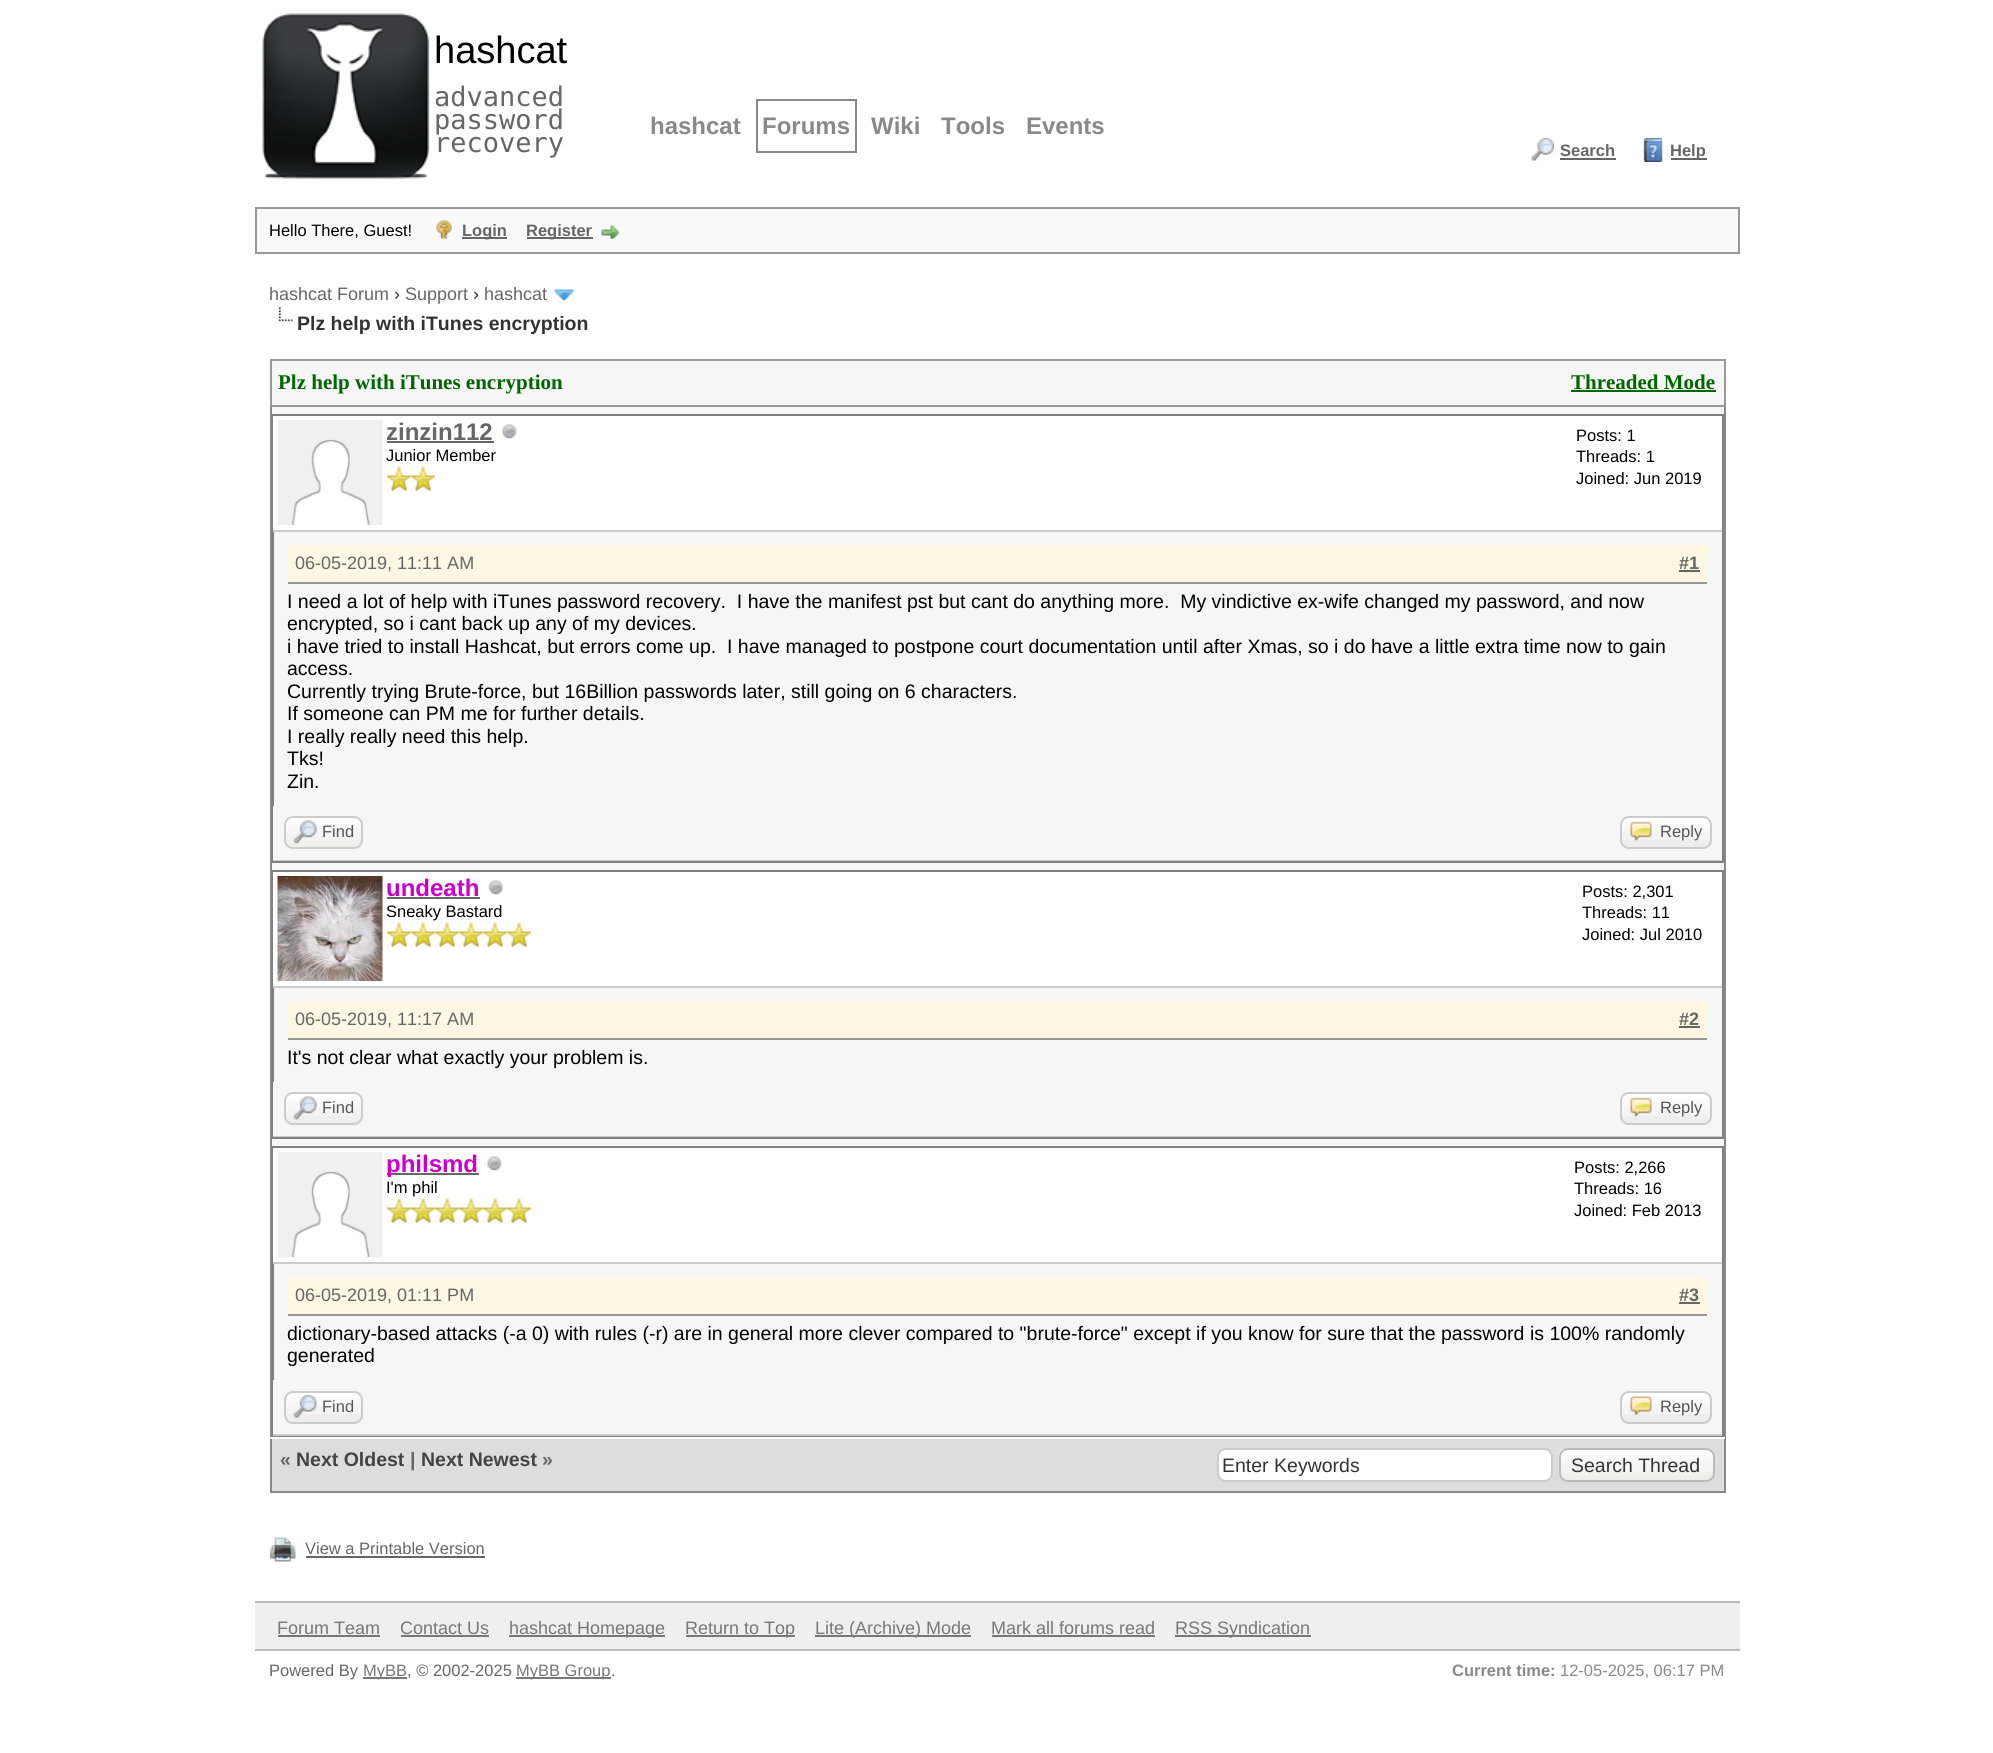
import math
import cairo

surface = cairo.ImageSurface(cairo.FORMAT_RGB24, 1993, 1753)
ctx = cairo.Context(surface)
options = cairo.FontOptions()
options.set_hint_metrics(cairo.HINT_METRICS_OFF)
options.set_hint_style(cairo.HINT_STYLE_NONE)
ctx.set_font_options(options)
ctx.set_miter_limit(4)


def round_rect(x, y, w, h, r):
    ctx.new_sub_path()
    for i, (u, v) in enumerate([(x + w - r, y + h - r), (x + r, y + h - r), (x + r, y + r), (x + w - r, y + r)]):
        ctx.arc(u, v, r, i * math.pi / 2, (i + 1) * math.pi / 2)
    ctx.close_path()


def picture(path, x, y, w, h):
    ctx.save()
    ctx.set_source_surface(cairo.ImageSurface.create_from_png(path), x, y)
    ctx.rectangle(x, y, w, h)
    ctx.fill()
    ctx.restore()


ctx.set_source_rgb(1, 1, 1)
ctx.paint()
picture("img1.png", 262, 13, 168, 166)
ctx.select_font_face("Liberation Sans")
ctx.set_font_size(38)
ctx.set_source_rgb(0, 0, 0)
ctx.move_to(434, 63)
ctx.show_text("hashcat")
ctx.select_font_face("DejaVu Sans Mono")
ctx.set_font_size(27)
ctx.set_source_rgb(0.4, 0.4, 0.4)
ctx.move_to(434, 106)
ctx.show_text("advanced")
ctx.move_to(434, 129)
ctx.show_text("password")
ctx.move_to(434, 152)
ctx.show_text("recovery")
ctx.select_font_face("Liberation Sans", cairo.FONT_SLANT_NORMAL, cairo.FONT_WEIGHT_BOLD)
ctx.set_font_size(24)
ctx.set_source_rgb(0.537, 0.537, 0.537)
ctx.move_to(650, 134)
ctx.show_text("hashcat")
ctx.rectangle(757, 100, 99, 52)
ctx.stroke()
ctx.move_to(762, 134)
ctx.show_text("Forums")
ctx.move_to(871, 134)
ctx.show_text("Wiki")
ctx.move_to(941, 134)
ctx.show_text("Tools")
ctx.move_to(1026, 134)
ctx.show_text("Events")
picture("img2.png", 1531, 138, 23, 23)
ctx.set_font_size(16.5)
ctx.set_source_rgb(0.4, 0.4, 0.4)
ctx.move_to(1560, 156)
ctx.show_text("Search")
ctx.rectangle(1560, 158, 56, 2)
ctx.fill()
picture("img3.png", 1643, 138, 20, 24)
ctx.rectangle(1671, 158, 36, 2)
ctx.fill()
ctx.move_to(1670, 156)
ctx.show_text("Help")
ctx.set_source_rgb(0.98, 0.98, 0.98)
ctx.rectangle(256, 208, 1483, 45)
ctx.fill_preserve()
ctx.set_source_rgb(0.6, 0.6, 0.6)
ctx.stroke()
ctx.select_font_face("Liberation Sans")
ctx.set_source_rgb(0, 0, 0)
ctx.move_to(269, 236)
ctx.show_text("Hello There, Guest!")
picture("img4.png", 436, 220, 16, 19)
ctx.set_source_rgb(0.4, 0.4, 0.4)
ctx.rectangle(462, 237, 45, 2)
ctx.fill()
ctx.select_font_face("Liberation Sans", cairo.FONT_SLANT_NORMAL, cairo.FONT_WEIGHT_BOLD)
ctx.move_to(462, 236)
ctx.show_text("Login")
ctx.rectangle(527, 237, 66, 2)
ctx.fill()
ctx.move_to(526, 236)
ctx.show_text("Register")
picture("img5.png", 601, 224, 19, 15)
ctx.select_font_face("Liberation Sans")
ctx.set_font_size(18)
ctx.move_to(269, 300)
ctx.show_text("hashcat Forum")
ctx.set_source_rgb(0.2, 0.2, 0.2)
ctx.move_to(394, 300)
ctx.show_text("›")
ctx.set_source_rgb(0.4, 0.4, 0.4)
ctx.move_to(405, 300)
ctx.show_text("Support")
ctx.set_source_rgb(0.2, 0.2, 0.2)
ctx.move_to(473, 300)
ctx.show_text("›")
ctx.set_source_rgb(0.4, 0.4, 0.4)
ctx.move_to(484, 300)
ctx.show_text("hashcat")
picture("img6.png", 553, 289, 22, 12)
picture("img7.png", 278, 307, 15, 15)
ctx.select_font_face("Liberation Sans", cairo.FONT_SLANT_NORMAL, cairo.FONT_WEIGHT_BOLD)
ctx.set_font_size(19.5)
ctx.set_source_rgb(0.2, 0.2, 0.2)
ctx.move_to(297, 330)
ctx.show_text("Plz help with iTunes encryption")
ctx.set_source_rgb(0.961, 0.961, 0.961)
ctx.rectangle(272, 361, 1452, 1019)
ctx.fill()
ctx.set_source_rgb(0.537, 0.537, 0.537)
ctx.rectangle(1724, 407, 2, 1086)
ctx.fill()
ctx.rectangle(270, 1491, 1455, 2)
ctx.fill()
ctx.rectangle(270, 407, 2, 1086)
ctx.fill()
ctx.set_source_rgb(0.6, 0.6, 0.6)
ctx.rectangle(270, 359, 1455, 2)
ctx.fill()
ctx.rectangle(1724, 359, 2, 48)
ctx.fill()
ctx.rectangle(270, 405, 1455, 2)
ctx.fill()
ctx.rectangle(270, 359, 2, 48)
ctx.fill()
ctx.select_font_face("Liberation Serif", cairo.FONT_SLANT_NORMAL, cairo.FONT_WEIGHT_BOLD)
ctx.set_font_size(21)
ctx.set_source_rgb(0, 0.4, 0)
ctx.move_to(278, 389)
ctx.show_text("Plz help with iTunes encryption")
ctx.move_to(1571, 389)
ctx.show_text("Threaded Mode")
ctx.rectangle(1571, 390, 145, 2)
ctx.fill()
ctx.rectangle(273, 415, 1450, 447)
ctx.set_source_rgb(0.502, 0.502, 0.502)
ctx.stroke()
ctx.set_source_rgb(1, 1, 1)
ctx.rectangle(273, 416, 1449, 114)
ctx.fill()
ctx.set_source_rgb(0.8, 0.8, 0.8)
ctx.rectangle(273, 530, 1449, 2)
ctx.fill()
picture("img8.png", 277, 420, 106, 105)
ctx.select_font_face("Liberation Sans", cairo.FONT_SLANT_NORMAL, cairo.FONT_WEIGHT_BOLD)
ctx.set_font_size(24)
ctx.set_source_rgb(0.4, 0.4, 0.4)
ctx.move_to(386, 440)
ctx.show_text("zinzin112")
ctx.rectangle(387, 441, 107, 2)
ctx.fill()
picture("img9.png", 502, 424, 15, 15)
ctx.select_font_face("Liberation Sans")
ctx.set_font_size(16.5)
ctx.set_source_rgb(0, 0, 0)
ctx.move_to(386, 461)
ctx.show_text("Junior Member")
picture("img10.png", 387, 466, 24, 25)
picture("img10.png", 411, 466, 24, 25)
ctx.move_to(1576, 441)
ctx.show_text("Posts: 1")
ctx.move_to(1576, 462)
ctx.show_text("Threads: 1")
ctx.move_to(1576, 484)
ctx.show_text("Joined: Jun 2019")
ctx.set_source_rgb(0.996, 0.965, 0.894)
ctx.rectangle(288, 545, 1419, 37)
ctx.fill()
ctx.set_source_rgb(0.596, 0.596, 0.596)
ctx.rectangle(288, 582, 1419, 2)
ctx.fill()
ctx.set_font_size(18)
ctx.set_source_rgb(0.4, 0.4, 0.4)
ctx.move_to(295, 569)
ctx.show_text("06-05-2019, 11:11 AM")
ctx.select_font_face("Liberation Sans", cairo.FONT_SLANT_NORMAL, cairo.FONT_WEIGHT_BOLD)
ctx.move_to(1679, 569)
ctx.show_text("#1")
ctx.rectangle(1679, 570, 21, 2)
ctx.fill()
ctx.select_font_face("Liberation Sans")
ctx.set_font_size(19.5)
ctx.set_source_rgb(0, 0, 0)
ctx.move_to(287, 608)
ctx.show_text("I need a lot of help with iTunes password recovery.  I have the manifest pst but cant do anything more.  My vindictive ex-wife changed my password, and now")
ctx.move_to(287, 630)
ctx.show_text("encrypted, so i cant back up any of my devices.")
ctx.move_to(287, 653)
ctx.show_text("i have tried to install Hashcat, but errors come up.  I have managed to postpone court documentation until after Xmas, so i do have a little extra time now to gain")
ctx.move_to(287, 675)
ctx.show_text("access.")
ctx.move_to(287, 698)
ctx.show_text("Currently trying Brute-force, but 16Billion passwords later, still going on 6 characters.")
ctx.move_to(287, 720)
ctx.show_text("If someone can PM me for further details.")
ctx.move_to(287, 743)
ctx.show_text("I really really need this help.")
ctx.move_to(287, 765)
ctx.show_text("Tks!")
ctx.move_to(287, 788)
ctx.show_text("Zin.")
ctx.set_source_rgb(0.961, 0.961, 0.961)
ctx.rectangle(273, 806, 1, 54)
ctx.fill()
ctx.set_source_rgb(0.8, 0.8, 0.8)
ctx.rectangle(273, 860, 1449, 1)
ctx.fill()
picture("img11.png", 284, 817, 79, 30)
round_rect(285, 817, 77, 31, 8)
ctx.stroke()
picture("img12.png", 293, 820, 24, 24)
ctx.set_font_size(16.5)
ctx.set_source_rgb(0.333, 0.333, 0.333)
ctx.move_to(322, 837)
ctx.show_text("Find")
ctx.set_source_rgb(0.933, 0.933, 0.933)
round_rect(1620, 816, 92, 33, 9)
ctx.fill()
picture("img13.png", 1620, 817, 91, 23)
round_rect(1621, 817, 90, 31, 8)
ctx.set_source_rgb(0.8, 0.8, 0.8)
ctx.stroke()
picture("img14.png", 1630, 821, 22, 20)
ctx.set_source_rgb(0.333, 0.333, 0.333)
ctx.move_to(1660, 837)
ctx.show_text("Reply")
ctx.rectangle(273, 871, 1450, 267)
ctx.set_source_rgb(0.502, 0.502, 0.502)
ctx.stroke()
ctx.set_source_rgb(1, 1, 1)
ctx.rectangle(273, 872, 1449, 114)
ctx.fill()
ctx.set_source_rgb(0.8, 0.8, 0.8)
ctx.rectangle(273, 986, 1449, 2)
ctx.fill()
picture("img15.png", 277, 876, 106, 105)
ctx.select_font_face("Liberation Sans", cairo.FONT_SLANT_NORMAL, cairo.FONT_WEIGHT_BOLD)
ctx.set_font_size(24)
ctx.set_source_rgb(0.8, 0, 0.8)
ctx.move_to(386, 896)
ctx.show_text("undeath")
ctx.set_source_rgb(0.4, 0.4, 0.4)
ctx.rectangle(387, 897, 93, 2)
ctx.fill()
picture("img16.png", 488, 880, 15, 15)
ctx.select_font_face("Liberation Sans")
ctx.set_font_size(16.5)
ctx.set_source_rgb(0, 0, 0)
ctx.move_to(386, 917)
ctx.show_text("Sneaky Bastard")
picture("img10.png", 387, 922, 24, 25)
picture("img10.png", 411, 922, 24, 25)
picture("img10.png", 435, 922, 24, 25)
picture("img10.png", 459, 922, 24, 25)
picture("img10.png", 483, 922, 24, 25)
picture("img17.png", 507, 922, 24, 25)
ctx.move_to(1582, 897)
ctx.show_text("Posts: 2,301")
ctx.move_to(1582, 918)
ctx.show_text("Threads: 11")
ctx.move_to(1582, 940)
ctx.show_text("Joined: Jul 2010")
ctx.set_source_rgb(0.996, 0.965, 0.894)
ctx.rectangle(288, 1001, 1419, 37)
ctx.fill()
ctx.set_source_rgb(0.596, 0.596, 0.596)
ctx.rectangle(288, 1038, 1419, 2)
ctx.fill()
ctx.set_font_size(18)
ctx.set_source_rgb(0.4, 0.4, 0.4)
ctx.move_to(295, 1025)
ctx.show_text("06-05-2019, 11:17 AM")
ctx.select_font_face("Liberation Sans", cairo.FONT_SLANT_NORMAL, cairo.FONT_WEIGHT_BOLD)
ctx.move_to(1679, 1025)
ctx.show_text("#2")
ctx.rectangle(1679, 1026, 21, 2)
ctx.fill()
ctx.select_font_face("Liberation Sans")
ctx.set_font_size(19.5)
ctx.set_source_rgb(0, 0, 0)
ctx.move_to(287, 1064)
ctx.show_text("It's not clear what exactly your problem is.")
ctx.set_source_rgb(0.961, 0.961, 0.961)
ctx.rectangle(273, 1082, 1, 54)
ctx.fill()
ctx.set_source_rgb(0.8, 0.8, 0.8)
ctx.rectangle(273, 1136, 1449, 1)
ctx.fill()
picture("img11.png", 284, 1093, 79, 30)
round_rect(285, 1093, 77, 31, 8)
ctx.stroke()
picture("img12.png", 293, 1096, 24, 24)
ctx.set_font_size(16.5)
ctx.set_source_rgb(0.333, 0.333, 0.333)
ctx.move_to(322, 1113)
ctx.show_text("Find")
ctx.set_source_rgb(0.933, 0.933, 0.933)
round_rect(1620, 1092, 92, 33, 9)
ctx.fill()
picture("img13.png", 1620, 1093, 91, 23)
round_rect(1621, 1093, 90, 31, 8)
ctx.set_source_rgb(0.8, 0.8, 0.8)
ctx.stroke()
picture("img14.png", 1630, 1097, 22, 20)
ctx.set_source_rgb(0.333, 0.333, 0.333)
ctx.move_to(1660, 1113)
ctx.show_text("Reply")
ctx.rectangle(273, 1147, 1450, 289)
ctx.set_source_rgb(0.502, 0.502, 0.502)
ctx.stroke()
ctx.set_source_rgb(1, 1, 1)
ctx.rectangle(273, 1148, 1449, 114)
ctx.fill()
ctx.set_source_rgb(0.8, 0.8, 0.8)
ctx.rectangle(273, 1262, 1449, 2)
ctx.fill()
picture("img8.png", 277, 1152, 106, 105)
ctx.set_source_rgb(0.4, 0.4, 0.4)
ctx.rectangle(387, 1173, 92, 2)
ctx.fill()
ctx.select_font_face("Liberation Sans", cairo.FONT_SLANT_NORMAL, cairo.FONT_WEIGHT_BOLD)
ctx.set_font_size(24)
ctx.set_source_rgb(0.8, 0, 0.8)
ctx.move_to(386, 1172)
ctx.show_text("philsmd")
picture("img18.png", 487, 1156, 15, 15)
ctx.select_font_face("Liberation Sans")
ctx.set_font_size(16.5)
ctx.set_source_rgb(0, 0, 0)
ctx.move_to(386, 1193)
ctx.show_text("I'm phil")
picture("img10.png", 387, 1198, 24, 25)
picture("img10.png", 411, 1198, 24, 25)
picture("img10.png", 435, 1198, 24, 25)
picture("img10.png", 459, 1198, 24, 25)
picture("img10.png", 483, 1198, 24, 25)
picture("img17.png", 507, 1198, 24, 25)
ctx.move_to(1574, 1173)
ctx.show_text("Posts: 2,266")
ctx.move_to(1574, 1194)
ctx.show_text("Threads: 16")
ctx.move_to(1574, 1216)
ctx.show_text("Joined: Feb 2013")
ctx.set_source_rgb(0.996, 0.965, 0.894)
ctx.rectangle(288, 1277, 1419, 37)
ctx.fill()
ctx.set_source_rgb(0.596, 0.596, 0.596)
ctx.rectangle(288, 1314, 1419, 2)
ctx.fill()
ctx.set_font_size(18)
ctx.set_source_rgb(0.4, 0.4, 0.4)
ctx.move_to(295, 1301)
ctx.show_text("06-05-2019, 01:11 PM")
ctx.select_font_face("Liberation Sans", cairo.FONT_SLANT_NORMAL, cairo.FONT_WEIGHT_BOLD)
ctx.move_to(1679, 1301)
ctx.show_text("#3")
ctx.rectangle(1679, 1302, 21, 2)
ctx.fill()
ctx.select_font_face("Liberation Sans")
ctx.set_font_size(19.5)
ctx.set_source_rgb(0, 0, 0)
ctx.move_to(287, 1340)
ctx.show_text("dictionary-based attacks (-a 0) with rules (-r) are in general more clever compared to \"brute-force\" except if you know for sure that the password is 100% randomly")
ctx.move_to(287, 1362)
ctx.show_text("generated")
ctx.set_source_rgb(0.961, 0.961, 0.961)
ctx.rectangle(273, 1380, 1449, 54)
ctx.fill()
ctx.set_source_rgb(0.8, 0.8, 0.8)
ctx.rectangle(273, 1434, 1449, 2)
ctx.fill()
ctx.set_source_rgb(0.933, 0.933, 0.933)
round_rect(284, 1391, 79, 33, 9)
ctx.fill()
picture("img19.png", 284, 1392, 79, 22)
round_rect(285, 1392, 77, 31, 8)
ctx.set_source_rgb(0.8, 0.8, 0.8)
ctx.stroke()
picture("img20.png", 293, 1395, 24, 23)
ctx.set_font_size(16.5)
ctx.set_source_rgb(0.333, 0.333, 0.333)
ctx.move_to(322, 1412)
ctx.show_text("Find")
ctx.set_source_rgb(0.933, 0.933, 0.933)
round_rect(1620, 1391, 92, 33, 9)
ctx.fill()
picture("img21.png", 1620, 1392, 91, 22)
round_rect(1621, 1392, 90, 31, 8)
ctx.set_source_rgb(0.8, 0.8, 0.8)
ctx.stroke()
picture("img22.png", 1630, 1396, 22, 19)
ctx.set_source_rgb(0.333, 0.333, 0.333)
ctx.move_to(1660, 1412)
ctx.show_text("Reply")
ctx.set_source_rgb(0.867, 0.867, 0.867)
ctx.rectangle(272, 1439, 1452, 52)
ctx.fill()
ctx.set_source_rgb(1, 1, 1)
ctx.rectangle(270, 1437, 1455, 2)
ctx.fill()
ctx.select_font_face("Liberation Sans", cairo.FONT_SLANT_NORMAL, cairo.FONT_WEIGHT_BOLD)
ctx.set_font_size(19.5)
ctx.set_source_rgb(0.4, 0.4, 0.4)
ctx.move_to(280, 1466)
ctx.show_text("«")
ctx.set_source_rgb(0.267, 0.267, 0.267)
ctx.move_to(296, 1466)
ctx.show_text("Next Oldest")
ctx.set_source_rgb(0.4, 0.4, 0.4)
ctx.move_to(410, 1466)
ctx.show_text("|")
ctx.set_source_rgb(0.267, 0.267, 0.267)
ctx.move_to(421, 1466)
ctx.show_text("Next Newest")
ctx.set_source_rgb(0.4, 0.4, 0.4)
ctx.move_to(542, 1466)
ctx.show_text("»")
ctx.set_source_rgb(1, 1, 1)
round_rect(1218, 1449, 334, 32, 8)
ctx.fill_preserve()
ctx.set_source_rgb(0.8, 0.8, 0.8)
ctx.stroke()
ctx.select_font_face("Liberation Sans")
ctx.set_source_rgb(0.2, 0.2, 0.2)
ctx.move_to(1222, 1472)
ctx.show_text("Enter Keywords")
picture("img23.png", 1558, 1449, 156, 31)
round_rect(1560, 1449, 154, 32, 8)
ctx.set_source_rgb(0.733, 0.733, 0.733)
ctx.stroke()
ctx.set_source_rgb(0.2, 0.2, 0.2)
ctx.move_to(1571, 1472)
ctx.show_text("Search Thread")
picture("img24.png", 270, 1537, 26, 25)
ctx.set_font_size(16.5)
ctx.set_source_rgb(0.4, 0.4, 0.4)
ctx.move_to(305, 1554)
ctx.show_text("View a Printable Version")
ctx.rectangle(306, 1556, 179, 2)
ctx.fill()
ctx.set_source_rgb(0.937, 0.937, 0.937)
ctx.rectangle(255, 1603, 1485, 46)
ctx.fill()
ctx.set_source_rgb(0.733, 0.733, 0.733)
ctx.rectangle(255, 1601, 1485, 2)
ctx.fill()
ctx.rectangle(255, 1649, 1485, 2)
ctx.fill()
ctx.set_font_size(18)
ctx.set_source_rgb(0.467, 0.467, 0.467)
ctx.move_to(277, 1634)
ctx.show_text("Forum Team")
ctx.rectangle(278, 1635, 102, 2)
ctx.fill()
ctx.move_to(400, 1634)
ctx.show_text("Contact Us")
ctx.rectangle(401, 1635, 88, 2)
ctx.fill()
ctx.rectangle(509, 1635, 156, 2)
ctx.fill()
ctx.move_to(509, 1634)
ctx.show_text("hashcat Homepage")
ctx.rectangle(686, 1635, 109, 2)
ctx.fill()
ctx.move_to(685, 1634)
ctx.show_text("Return to Top")
ctx.rectangle(815, 1635, 156, 2)
ctx.fill()
ctx.move_to(815, 1634)
ctx.show_text("Lite (Archive) Mode")
ctx.move_to(991, 1634)
ctx.show_text("Mark all forums read")
ctx.rectangle(992, 1635, 163, 2)
ctx.fill()
ctx.rectangle(1175, 1635, 136, 2)
ctx.fill()
ctx.move_to(1175, 1634)
ctx.show_text("RSS Syndication")
ctx.set_font_size(16.5)
ctx.set_source_rgb(0.4, 0.4, 0.4)
ctx.move_to(269, 1676)
ctx.show_text("Powered By")
ctx.set_source_rgb(0.467, 0.467, 0.467)
ctx.rectangle(363, 1677, 44, 2)
ctx.fill()
ctx.move_to(363, 1676)
ctx.show_text("MyBB")
ctx.set_source_rgb(0.4, 0.4, 0.4)
ctx.move_to(407, 1676)
ctx.show_text(", © 2002-2025")
ctx.set_source_rgb(0.467, 0.467, 0.467)
ctx.rectangle(516, 1677, 95, 2)
ctx.fill()
ctx.move_to(516, 1676)
ctx.show_text("MyBB Group")
ctx.set_source_rgb(0.4, 0.4, 0.4)
ctx.move_to(611, 1676)
ctx.show_text(".")
ctx.select_font_face("Liberation Sans", cairo.FONT_SLANT_NORMAL, cairo.FONT_WEIGHT_BOLD)
ctx.set_source_rgb(0.537, 0.537, 0.537)
ctx.move_to(1452, 1676)
ctx.show_text("Current time:")
ctx.select_font_face("Liberation Sans")
ctx.move_to(1560, 1676)
ctx.show_text("12-05-2025, 06:17 PM")
surface.write_to_png("page.png")
